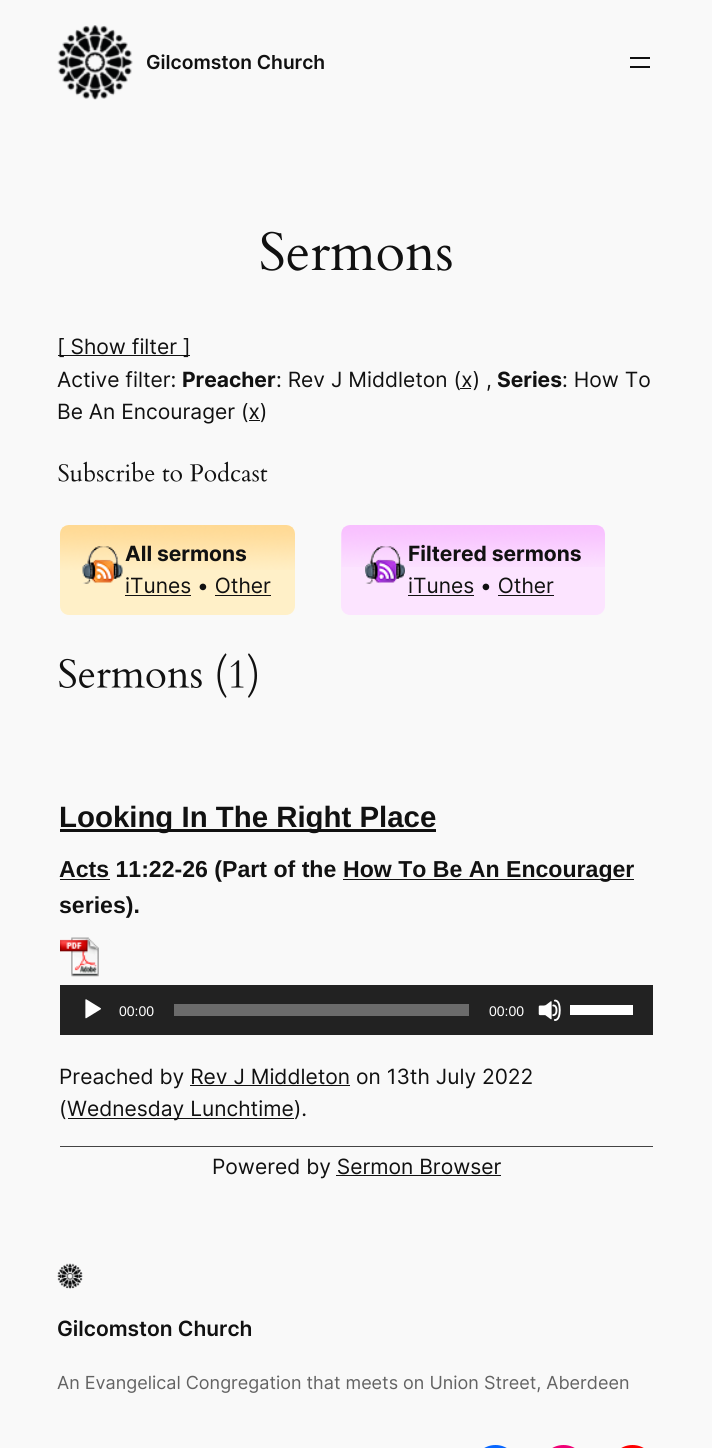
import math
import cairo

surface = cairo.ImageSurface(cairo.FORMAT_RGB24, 712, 1448)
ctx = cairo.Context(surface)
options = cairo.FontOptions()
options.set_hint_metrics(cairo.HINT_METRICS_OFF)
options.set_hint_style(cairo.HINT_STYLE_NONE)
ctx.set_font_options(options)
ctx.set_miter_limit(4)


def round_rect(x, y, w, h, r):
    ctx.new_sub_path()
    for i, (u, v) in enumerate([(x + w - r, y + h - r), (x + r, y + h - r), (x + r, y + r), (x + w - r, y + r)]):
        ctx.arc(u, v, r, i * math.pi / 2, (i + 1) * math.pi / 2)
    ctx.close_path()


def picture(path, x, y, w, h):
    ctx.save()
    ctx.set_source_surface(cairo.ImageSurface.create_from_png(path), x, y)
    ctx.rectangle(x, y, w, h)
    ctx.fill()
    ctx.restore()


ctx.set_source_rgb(0.976, 0.976, 0.976)
ctx.paint()
picture("img1.png", 57, 25, 76, 75)
ctx.select_font_face("Inter SemiBold")
ctx.set_font_size(19.25)
ctx.set_source_rgb(0.067, 0.067, 0.067)
ctx.move_to(146, 69)
ctx.show_text("Gilcomston Church")
ctx.rectangle(630, 57, 20, 2)
ctx.fill()
ctx.rectangle(630, 66, 20, 2)
ctx.fill()
picture("img2.png", 261, 231, 191, 40)
ctx.rectangle(58, 355, 132, 1)
ctx.fill()
ctx.select_font_face("Inter")
ctx.set_font_size(21)
ctx.move_to(57, 354)
ctx.show_text("[ Show filter ]")
ctx.move_to(57, 387)
ctx.show_text("Active filter:")
ctx.select_font_face("Inter", cairo.FONT_SLANT_NORMAL, cairo.FONT_WEIGHT_BOLD)
ctx.move_to(182, 387)
ctx.show_text("Preacher")
ctx.select_font_face("Inter")
ctx.move_to(276, 387)
ctx.show_text(": Rev J Middleton (x) ,")
ctx.select_font_face("Inter", cairo.FONT_SLANT_NORMAL, cairo.FONT_WEIGHT_BOLD)
ctx.move_to(497, 387)
ctx.show_text("Series")
ctx.select_font_face("Inter")
ctx.move_to(562, 387)
ctx.show_text(": How To")
ctx.rectangle(460, 388, 11, 1)
ctx.fill()
ctx.move_to(57, 419)
ctx.show_text("Be An Encourager (x)")
ctx.rectangle(249, 420, 11, 1)
ctx.fill()
picture("img3.png", 58, 461, 210, 21)
ctx.set_source_rgb(1, 0.941, 0.784)
round_rect(60, 525, 235, 90, 9)
ctx.fill()
picture("img4.png", 60, 525, 235, 45)
picture("img5.png", 82, 546, 41, 38)
ctx.select_font_face("Inter", cairo.FONT_SLANT_NORMAL, cairo.FONT_WEIGHT_BOLD)
ctx.set_source_rgb(0.067, 0.067, 0.067)
ctx.move_to(125, 561)
ctx.show_text("All sermons")
ctx.select_font_face("Inter")
ctx.move_to(125, 593)
ctx.show_text("iTunes • Other")
ctx.rectangle(125, 595, 66, 1)
ctx.fill()
ctx.rectangle(215, 595, 56, 1)
ctx.fill()
ctx.set_source_rgb(0.988, 0.894, 1)
round_rect(341, 525, 264, 90, 9)
ctx.fill()
picture("img6.png", 341, 525, 264, 42)
picture("img7.png", 365, 546, 40, 38)
ctx.select_font_face("Inter", cairo.FONT_SLANT_NORMAL, cairo.FONT_WEIGHT_BOLD)
ctx.set_source_rgb(0.067, 0.067, 0.067)
ctx.move_to(408, 561)
ctx.show_text("Filtered sermons")
ctx.select_font_face("Inter")
ctx.move_to(408, 593)
ctx.show_text("iTunes • Other")
ctx.rectangle(408, 595, 66, 1)
ctx.fill()
ctx.rectangle(498, 595, 56, 1)
ctx.fill()
picture("img8.png", 59, 653, 199, 45)
ctx.rectangle(60, 829, 376, 3)
ctx.fill()
ctx.select_font_face("Liberation Sans", cairo.FONT_SLANT_NORMAL, cairo.FONT_WEIGHT_BOLD)
ctx.set_font_size(29.4)
ctx.move_to(59, 827)
ctx.show_text("Looking In The Right Place")
ctx.rectangle(60, 879, 50, 1)
ctx.fill()
ctx.set_font_size(23.1)
ctx.move_to(59, 877)
ctx.show_text("Acts 11:22-26 (Part of the")
ctx.rectangle(343, 879, 291, 1)
ctx.fill()
ctx.move_to(343, 877)
ctx.show_text("How To Be An Encourager")
ctx.move_to(59, 913)
ctx.show_text("series).")
picture("img9.png", 60, 937, 39, 40)
ctx.set_source_rgb(0.133, 0.133, 0.133)
ctx.rectangle(60, 985, 593, 50)
ctx.fill()
picture("img10.png", 85, 999, 16, 20)
ctx.select_font_face("Liberation Sans")
ctx.set_font_size(14)
ctx.set_source_rgb(1, 1, 1)
ctx.move_to(119, 1016)
ctx.show_text("00:00")
ctx.set_source_rgb(0.42, 0.42, 0.42)
ctx.rectangle(174, 1004, 295, 12)
ctx.fill()
ctx.set_source_rgb(1, 1, 1)
ctx.move_to(489, 1016)
ctx.show_text("00:00")
picture("img11.png", 538, 999, 23, 22)
ctx.rectangle(570, 1005, 63, 10)
ctx.fill()
ctx.set_source_rgb(0.267, 0.267, 0.267)
ctx.rectangle(60, 1146, 593, 1)
ctx.fill()
ctx.select_font_face("Inter")
ctx.set_font_size(21)
ctx.set_source_rgb(0.067, 0.067, 0.067)
ctx.move_to(59, 1084)
ctx.show_text("Preached by Rev J Middleton on 13th July 2022")
ctx.rectangle(190, 1085, 160, 1)
ctx.fill()
ctx.move_to(59, 1116)
ctx.show_text("(")
ctx.rectangle(68, 1118, 226, 1)
ctx.fill()
ctx.move_to(67, 1116)
ctx.show_text("Wednesday Lunchtime).")
ctx.move_to(212, 1174)
ctx.show_text("Powered by Sermon Browser")
ctx.rectangle(336, 1175, 165, 1)
ctx.fill()
picture("img12.png", 57, 1263, 26, 26)
ctx.select_font_face("Inter SemiBold")
ctx.move_to(57, 1336)
ctx.show_text("Gilcomston Church")
ctx.select_font_face("Inter")
ctx.set_font_size(18)
ctx.set_source_rgb(0.388, 0.388, 0.388)
ctx.move_to(57, 1389)
ctx.show_text("An Evangelical Congregation that meets on Union Street, Aberdeen")
ctx.set_source_rgb(0.031, 0.4, 1)
round_rect(473, 1445, 45, 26, 22.5)
ctx.fill()
ctx.set_source_rgb(0.941, 0, 0.459)
round_rect(541, 1445, 45, 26, 22.5)
ctx.fill()
ctx.set_source_rgb(1, 0, 0)
round_rect(610, 1445, 45, 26, 22.5)
ctx.fill()
surface.write_to_png("page.png")
